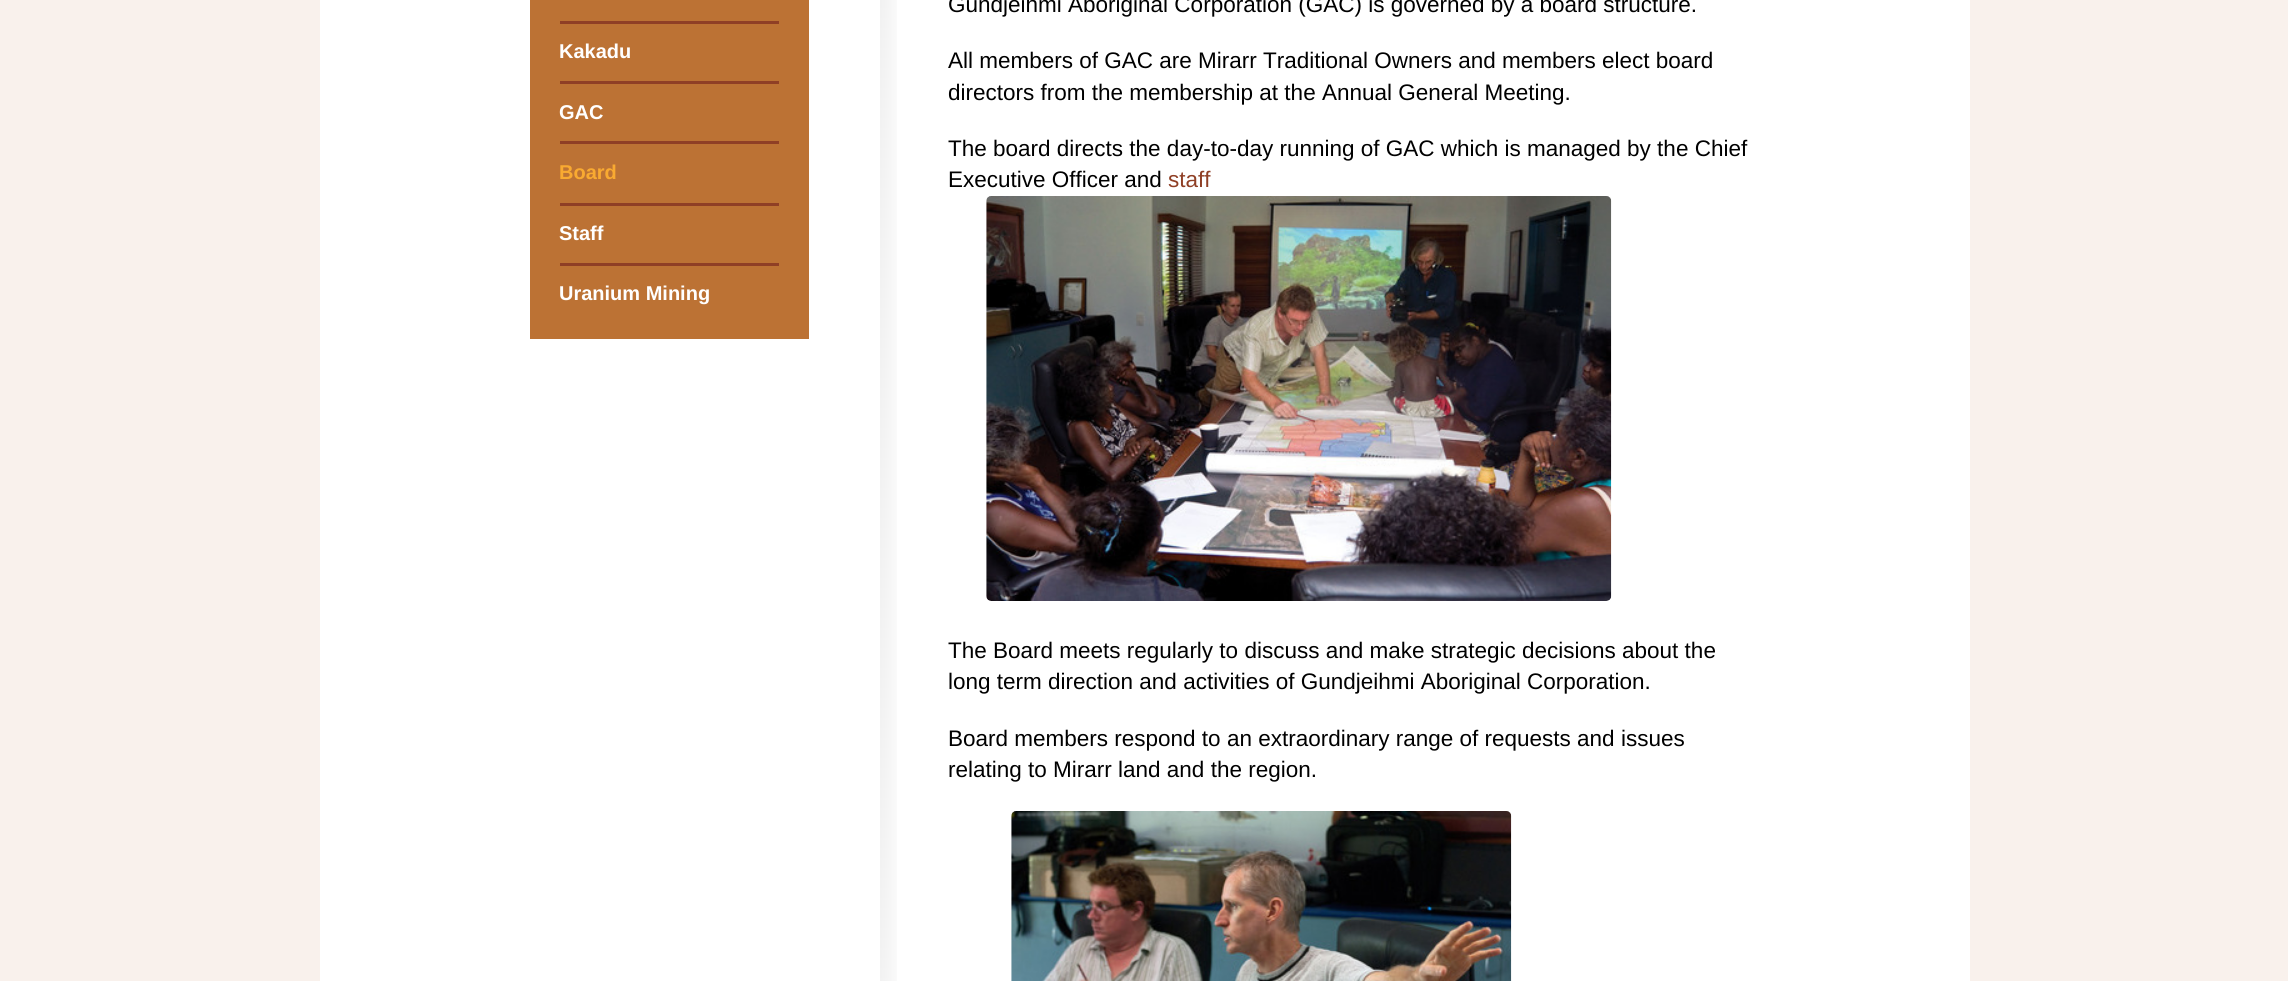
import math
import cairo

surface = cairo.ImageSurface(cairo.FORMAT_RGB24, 2288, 981)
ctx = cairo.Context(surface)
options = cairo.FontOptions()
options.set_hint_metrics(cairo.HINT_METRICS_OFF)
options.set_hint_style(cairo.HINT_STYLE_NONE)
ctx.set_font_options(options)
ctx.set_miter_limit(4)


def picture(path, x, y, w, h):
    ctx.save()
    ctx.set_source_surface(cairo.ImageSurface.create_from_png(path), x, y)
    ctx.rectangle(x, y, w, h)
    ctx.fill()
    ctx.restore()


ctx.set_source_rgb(0.973, 0.945, 0.922)
ctx.paint()
ctx.set_source_rgb(1, 1, 1)
ctx.rectangle(320, 0, 1650, 981)
ctx.fill()
ctx.set_source_rgb(0.737, 0.447, 0.204)
ctx.rectangle(530, 0, 279, 339)
ctx.fill()
ctx.set_source_rgb(0.561, 0.247, 0.145)
ctx.rectangle(560, 21, 219, 3)
ctx.fill()
ctx.select_font_face("Liberation Sans", cairo.FONT_SLANT_NORMAL, cairo.FONT_WEIGHT_BOLD)
ctx.set_font_size(20)
ctx.set_source_rgb(1, 1, 1)
ctx.move_to(559, 58)
ctx.show_text("Kakadu")
ctx.set_source_rgb(0.561, 0.247, 0.145)
ctx.rectangle(560, 81, 219, 3)
ctx.fill()
ctx.set_source_rgb(1, 1, 1)
ctx.move_to(559, 119)
ctx.show_text("GAC")
ctx.set_source_rgb(0.561, 0.247, 0.145)
ctx.rectangle(560, 141, 219, 3)
ctx.fill()
ctx.set_source_rgb(0.976, 0.667, 0.192)
ctx.move_to(559, 179)
ctx.show_text("Board")
ctx.set_source_rgb(0.561, 0.247, 0.145)
ctx.rectangle(560, 203, 219, 3)
ctx.fill()
ctx.set_source_rgb(1, 1, 1)
ctx.move_to(559, 240)
ctx.show_text("Staff")
ctx.set_source_rgb(0.561, 0.247, 0.145)
ctx.rectangle(560, 263, 219, 3)
ctx.fill()
ctx.set_source_rgb(1, 1, 1)
ctx.move_to(559, 300)
ctx.show_text("Uranium Mining")
picture("img1.png", 880, 0, 17, 981)
ctx.select_font_face("Liberation Sans")
ctx.set_font_size(22.5)
ctx.set_source_rgb(0, 0, 0)
ctx.move_to(948, 12)
ctx.show_text("Gundjeihmi Aboriginal Corporation (GAC) is governed by a board structure.")
ctx.move_to(948, 68)
ctx.show_text("All members of GAC are Mirarr Traditional Owners and members elect board")
ctx.move_to(948, 100)
ctx.show_text("directors from the membership at the Annual General Meeting.")
ctx.move_to(948, 156)
ctx.show_text("The board directs the day-to-day running of GAC which is managed by the Chief")
ctx.move_to(948, 187)
ctx.show_text("Executive Officer and")
ctx.set_source_rgb(0.561, 0.247, 0.145)
ctx.move_to(1168, 187)
ctx.show_text("staff")
picture("img2.png", 986, 196, 626, 405)
ctx.set_source_rgb(0, 0, 0)
ctx.move_to(948, 658)
ctx.show_text("The Board meets regularly to discuss and make strategic decisions about the")
ctx.move_to(948, 689)
ctx.show_text("long term direction and activities of Gundjeihmi Aboriginal Corporation.")
ctx.move_to(948, 746)
ctx.show_text("Board members respond to an extraordinary range of requests and issues")
ctx.move_to(948, 777)
ctx.show_text("relating to Mirarr land and the region.")
picture("img3.png", 1011, 811, 501, 170)
surface.write_to_png("page.png")
